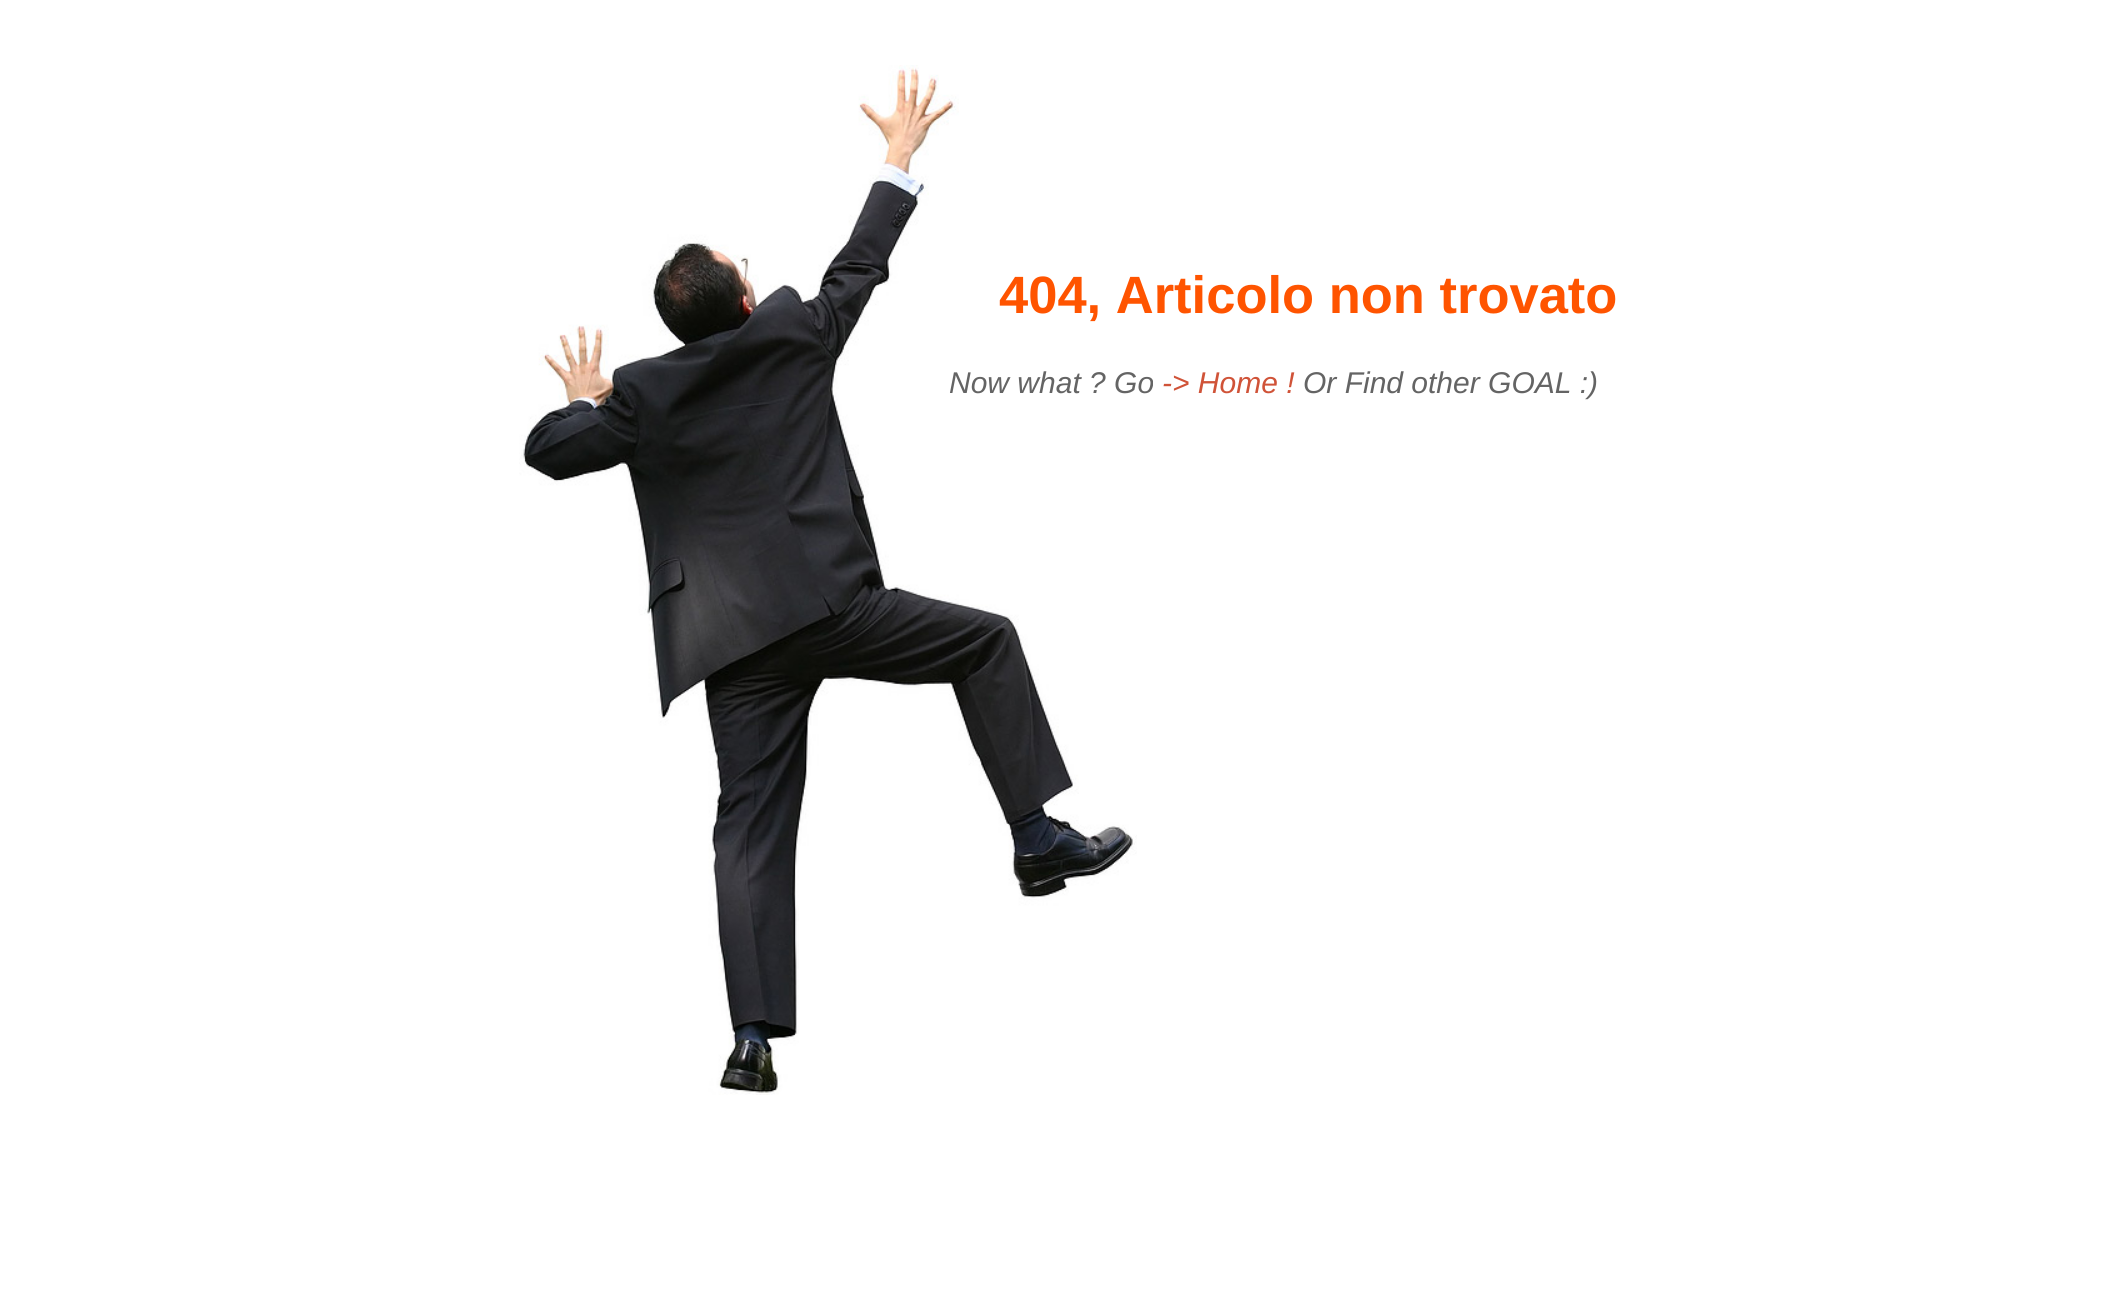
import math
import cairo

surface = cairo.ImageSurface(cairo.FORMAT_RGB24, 2110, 1314)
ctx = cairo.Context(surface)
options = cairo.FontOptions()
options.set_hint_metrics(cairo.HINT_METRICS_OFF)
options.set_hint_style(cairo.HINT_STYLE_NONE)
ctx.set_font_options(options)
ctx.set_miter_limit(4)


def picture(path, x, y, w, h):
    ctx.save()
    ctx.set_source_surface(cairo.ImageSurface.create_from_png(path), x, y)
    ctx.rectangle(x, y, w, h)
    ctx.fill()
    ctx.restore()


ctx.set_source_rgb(1, 1, 1)
ctx.paint()
picture("img1.png", 519, 65, 618, 1030)
ctx.select_font_face("Liberation Sans", cairo.FONT_SLANT_NORMAL, cairo.FONT_WEIGHT_BOLD)
ctx.set_font_size(52.5)
ctx.set_source_rgb(1, 0.329, 0)
ctx.move_to(999, 313)
ctx.show_text("404, Articolo non trovato")
ctx.select_font_face("Liberation Sans", cairo.FONT_SLANT_ITALIC)
ctx.set_font_size(30)
ctx.set_source_rgb(0.392, 0.392, 0.392)
ctx.move_to(949, 393)
ctx.show_text("Now what ? Go")
ctx.set_source_rgb(0.816, 0.325, 0.22)
ctx.move_to(1162, 393)
ctx.show_text("-> Home !")
ctx.set_source_rgb(0.392, 0.392, 0.392)
ctx.move_to(1303, 393)
ctx.show_text("Or Find other GOAL :)")
surface.write_to_png("page.png")
